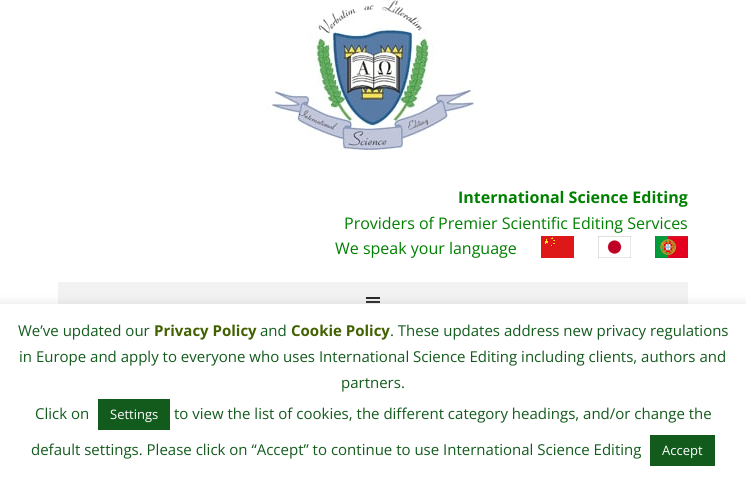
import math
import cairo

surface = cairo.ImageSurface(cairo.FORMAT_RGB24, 746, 478)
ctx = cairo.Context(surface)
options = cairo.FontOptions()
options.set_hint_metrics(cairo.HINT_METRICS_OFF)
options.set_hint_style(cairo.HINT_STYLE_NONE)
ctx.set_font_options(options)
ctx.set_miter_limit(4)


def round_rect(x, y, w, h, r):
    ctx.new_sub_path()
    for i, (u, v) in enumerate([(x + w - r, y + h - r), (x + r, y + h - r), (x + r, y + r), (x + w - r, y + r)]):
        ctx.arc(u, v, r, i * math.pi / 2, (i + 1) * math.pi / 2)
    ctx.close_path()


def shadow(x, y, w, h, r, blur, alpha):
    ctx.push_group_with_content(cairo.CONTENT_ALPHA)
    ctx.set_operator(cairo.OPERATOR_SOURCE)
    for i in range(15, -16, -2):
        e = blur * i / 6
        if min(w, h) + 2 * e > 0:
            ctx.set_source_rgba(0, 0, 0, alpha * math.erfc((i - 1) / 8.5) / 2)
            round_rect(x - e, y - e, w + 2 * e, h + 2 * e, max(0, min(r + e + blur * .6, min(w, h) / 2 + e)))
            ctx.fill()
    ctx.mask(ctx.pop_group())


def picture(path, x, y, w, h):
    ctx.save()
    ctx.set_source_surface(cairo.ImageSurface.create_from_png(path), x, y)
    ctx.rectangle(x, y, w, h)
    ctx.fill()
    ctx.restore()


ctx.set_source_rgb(1, 1, 1)
ctx.paint()
picture("img1.png", 267, 0, 208, 150)
ctx.select_font_face("Open Sans", cairo.FONT_SLANT_NORMAL, cairo.FONT_WEIGHT_BOLD)
ctx.set_font_size(16)
ctx.set_source_rgb(0, 0.502, 0)
ctx.move_to(458, 203)
ctx.show_text("International Science Editing")
ctx.select_font_face("Open Sans")
ctx.move_to(344, 229)
ctx.show_text("Providers of Premier Scientific Editing Services")
ctx.move_to(335, 254)
ctx.show_text("We speak your language")
picture("img2.png", 541, 236, 33, 22)
picture("img3.png", 598, 236, 33, 22)
picture("img4.png", 655, 236, 33, 22)
ctx.set_source_rgb(0.949, 0.949, 0.949)
ctx.rectangle(58, 282, 630, 22)
ctx.fill()
picture("img5.png", 366, 297, 14, 6)
ctx.set_source_rgb(0.675, 0.671, 0.671)
shadow(0, 303, 746, 174, 0, 5, 0.3)
ctx.set_source_rgb(1, 1, 1)
ctx.rectangle(0, 304, 746, 174)
ctx.fill()
ctx.set_font_size(15)
ctx.set_source_rgb(0.078, 0.357, 0.114)
ctx.move_to(18, 336)
ctx.show_text("We’ve updated our")
ctx.select_font_face("Open Sans", cairo.FONT_SLANT_NORMAL, cairo.FONT_WEIGHT_BOLD)
ctx.set_source_rgb(0.259, 0.38, 0)
ctx.move_to(154, 336)
ctx.show_text("Privacy Policy")
ctx.select_font_face("Open Sans")
ctx.set_source_rgb(0.078, 0.357, 0.114)
ctx.move_to(260, 336)
ctx.show_text("and")
ctx.select_font_face("Open Sans", cairo.FONT_SLANT_NORMAL, cairo.FONT_WEIGHT_BOLD)
ctx.set_source_rgb(0.259, 0.38, 0)
ctx.move_to(291, 336)
ctx.show_text("Cookie Policy")
ctx.select_font_face("Open Sans")
ctx.set_source_rgb(0.078, 0.357, 0.114)
ctx.move_to(390, 336)
ctx.show_text(". These updates address new privacy regulations")
ctx.move_to(19, 362)
ctx.show_text("in Europe and apply to everyone who uses International Science Editing including clients, authors and")
ctx.move_to(341, 388)
ctx.show_text("partners.")
ctx.move_to(35, 419)
ctx.show_text("Click on")
ctx.rectangle(98, 399, 72, 31)
ctx.fill()
ctx.set_font_size(13)
ctx.set_source_rgb(1, 1, 1)
ctx.move_to(110, 419)
ctx.show_text("Settings")
ctx.set_font_size(15)
ctx.set_source_rgb(0.078, 0.357, 0.114)
ctx.move_to(174, 419)
ctx.show_text("to view the list of cookies, the different category headings, and/or change the")
ctx.move_to(31, 455)
ctx.show_text("default settings. Please click on “Accept” to continue to use International Science Editing")
ctx.rectangle(650, 435, 65, 31)
ctx.fill()
ctx.set_font_size(13)
ctx.set_source_rgb(1, 1, 1)
ctx.move_to(662, 455)
ctx.show_text("Accept")
surface.write_to_png("page.png")
